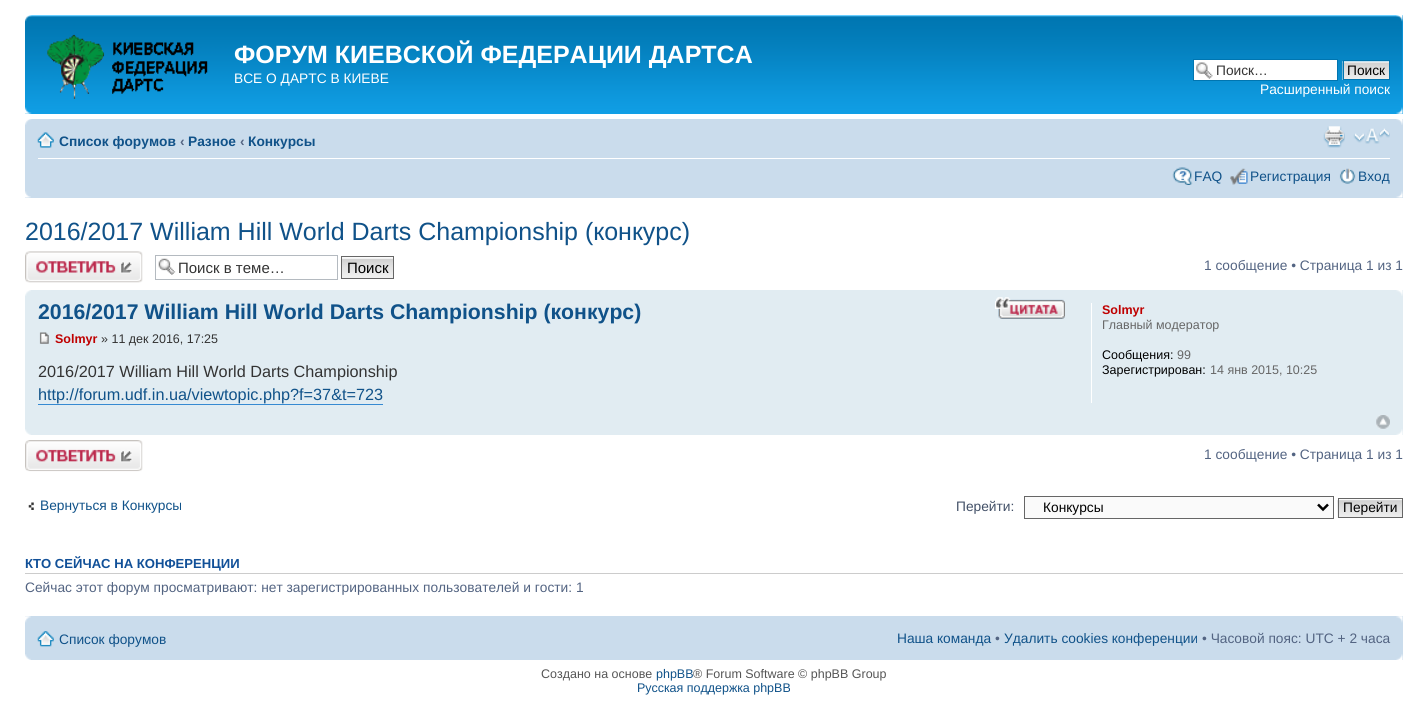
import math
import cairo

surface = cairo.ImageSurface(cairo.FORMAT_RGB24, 1427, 712)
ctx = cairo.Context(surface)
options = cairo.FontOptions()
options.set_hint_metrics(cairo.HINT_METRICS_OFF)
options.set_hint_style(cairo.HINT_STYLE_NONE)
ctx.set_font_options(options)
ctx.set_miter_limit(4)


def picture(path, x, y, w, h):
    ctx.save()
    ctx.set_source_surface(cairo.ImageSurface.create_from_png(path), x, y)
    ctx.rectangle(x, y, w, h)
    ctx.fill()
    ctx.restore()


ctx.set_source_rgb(1, 1, 1)
ctx.paint()
ctx.set_source_rgb(0.071, 0.639, 0.922)
ctx.rectangle(25, 15, 1378, 99)
ctx.fill()
picture("img1.png", 25, 15, 1378, 99)
picture("img2.png", 25, 15, 7, 7)
picture("img3.png", 1396, 15, 7, 7)
picture("img4.png", 47, 34, 161, 65)
ctx.select_font_face("Liberation Sans", cairo.FONT_SLANT_NORMAL, cairo.FONT_WEIGHT_BOLD)
ctx.set_font_size(25)
ctx.set_source_rgb(1, 1, 1)
ctx.move_to(234, 63)
ctx.show_text("ФОРУМ КИЕВСКОЙ ФЕДЕРАЦИИ ДАРТСА")
ctx.select_font_face("Liberation Sans")
ctx.set_font_size(13.75)
ctx.move_to(234, 83)
ctx.show_text("ВСЕ О ДАРТС В КИЕВЕ")
ctx.rectangle(1194, 60, 143, 20)
ctx.fill()
picture("img5.png", 1196, 62, 17, 17)
ctx.rectangle(1193.5, 59.5, 144, 21)
ctx.set_source_rgb(0, 0.459, 0.69)
ctx.set_line_width(1)
ctx.stroke()
ctx.set_source_rgb(0.2, 0.2, 0.2)
ctx.move_to(1216, 75)
ctx.show_text("Поиск…")
picture("img6.png", 1342, 61, 47, 19)
ctx.rectangle(1343.5, 60.5, 46, 19)
ctx.set_source_rgb(0, 0.459, 0.69)
ctx.stroke()
ctx.set_source_rgb(0, 0, 0)
ctx.move_to(1347, 75)
ctx.show_text("Поиск")
ctx.set_source_rgb(1, 1, 1)
ctx.move_to(1260, 94)
ctx.show_text("Расширенный поиск")
picture("img7.png", 25, 107, 7, 7)
picture("img8.png", 1396, 107, 7, 7)
ctx.set_source_rgb(0.792, 0.863, 0.922)
ctx.rectangle(25, 119, 1378, 79)
ctx.fill()
picture("img9.png", 25, 119, 7, 6)
picture("img10.png", 1396, 119, 7, 6)
ctx.set_source_rgb(1, 1, 1)
ctx.rectangle(38, 158, 1352, 1)
ctx.fill()
picture("img11.png", 37, 132, 17, 16)
ctx.select_font_face("Liberation Sans", cairo.FONT_SLANT_NORMAL, cairo.FONT_WEIGHT_BOLD)
ctx.set_source_rgb(0.063, 0.322, 0.537)
ctx.move_to(59, 146)
ctx.show_text("Список форумов")
ctx.set_source_rgb(0.325, 0.392, 0.51)
ctx.move_to(180, 146)
ctx.show_text("‹")
ctx.set_source_rgb(0.063, 0.322, 0.537)
ctx.move_to(188, 146)
ctx.show_text("Разное")
ctx.set_source_rgb(0.325, 0.392, 0.51)
ctx.move_to(240, 146)
ctx.show_text("‹")
ctx.set_source_rgb(0.063, 0.322, 0.537)
ctx.move_to(248, 146)
ctx.show_text("Конкурсы")
picture("img12.png", 1323, 126, 22, 22)
picture("img13.png", 1353, 128, 37, 16)
picture("img14.png", 1172, 167, 21, 18)
ctx.select_font_face("Liberation Sans")
ctx.move_to(1194, 181)
ctx.show_text("FAQ")
picture("img15.png", 1230, 168, 18, 17)
ctx.move_to(1250, 181)
ctx.show_text("Регистрация")
picture("img16.png", 1339, 168, 17, 16)
ctx.move_to(1358, 181)
ctx.show_text("Вход")
picture("img17.png", 25, 191, 6, 7)
picture("img18.png", 1396, 191, 7, 7)
ctx.set_font_size(25)
ctx.move_to(25, 240)
ctx.show_text("2016/2017 William Hill World Darts Championship (конкурс)")
picture("img19.png", 25, 251, 118, 32)
picture("img20.png", 158, 258, 18, 17)
ctx.rectangle(155.5, 255.5, 182, 24)
ctx.set_source_rgb(0.706, 0.729, 0.753)
ctx.stroke()
ctx.set_font_size(15)
ctx.set_source_rgb(0.2, 0.2, 0.2)
ctx.move_to(178, 273)
ctx.show_text("Поиск в теме…")
ctx.set_source_rgb(0.98, 0.98, 0.98)
ctx.rectangle(342, 257, 51, 1)
ctx.fill()
picture("img21.png", 342, 258, 51, 20)
ctx.rectangle(341.5, 256.5, 52, 22)
ctx.set_source_rgb(0.4, 0.4, 0.4)
ctx.stroke()
ctx.set_source_rgb(0, 0, 0)
ctx.move_to(347, 273)
ctx.show_text("Поиск")
ctx.set_font_size(13.75)
ctx.set_source_rgb(0.325, 0.392, 0.51)
ctx.move_to(1204, 270)
ctx.show_text("1 сообщение • Страница 1 из 1")
ctx.set_source_rgb(0.882, 0.922, 0.949)
ctx.rectangle(25, 290, 1378, 145)
ctx.fill()
picture("img22.png", 25, 290, 6, 6)
picture("img23.png", 1396, 290, 7, 6)
ctx.select_font_face("Liberation Sans", cairo.FONT_SLANT_NORMAL, cairo.FONT_WEIGHT_BOLD)
ctx.set_font_size(21.25)
ctx.set_source_rgb(0.063, 0.322, 0.537)
ctx.move_to(38, 319)
ctx.show_text("2016/2017 William Hill World Darts Championship (конкурс)")
picture("img24.png", 995, 297, 70, 22)
picture("img25.png", 995, 297, 70, 22)
picture("img26.png", 39, 332, 10, 12)
ctx.set_font_size(12.5)
ctx.set_source_rgb(0.749, 0, 0)
ctx.move_to(55, 343)
ctx.show_text("Solmyr")
ctx.select_font_face("Liberation Sans")
ctx.set_source_rgb(0.2, 0.2, 0.2)
ctx.move_to(101, 343)
ctx.show_text("» 11 дек 2016, 17:25")
ctx.set_font_size(16.25)
ctx.move_to(38, 377)
ctx.show_text("2016/2017 William Hill World Darts Championship")
ctx.set_source_rgb(0.063, 0.322, 0.537)
ctx.move_to(38, 400)
ctx.show_text("http://forum.udf.in.ua/viewtopic.php?f=37&t=723")
ctx.set_source_rgb(0.212, 0.541, 0.824)
ctx.rectangle(38, 404, 345, 1)
ctx.fill()
ctx.set_source_rgb(1, 1, 1)
ctx.rectangle(1091, 303, 1, 100)
ctx.fill()
ctx.select_font_face("Liberation Sans", cairo.FONT_SLANT_NORMAL, cairo.FONT_WEIGHT_BOLD)
ctx.set_font_size(12.5)
ctx.set_source_rgb(0.749, 0, 0)
ctx.move_to(1102, 314)
ctx.show_text("Solmyr")
ctx.select_font_face("Liberation Sans")
ctx.set_source_rgb(0.4, 0.4, 0.4)
ctx.move_to(1102, 329)
ctx.show_text("Главный модератор")
ctx.set_source_rgb(0, 0, 0)
ctx.move_to(1102, 359)
ctx.show_text("Сообщения:")
ctx.set_source_rgb(0.4, 0.4, 0.4)
ctx.move_to(1177, 359)
ctx.show_text("99")
ctx.set_source_rgb(0, 0, 0)
ctx.move_to(1102, 374)
ctx.show_text("Зарегистрирован:")
ctx.set_source_rgb(0.4, 0.4, 0.4)
ctx.move_to(1210, 374)
ctx.show_text("14 янв 2015, 10:25")
picture("img27.png", 1376, 415, 14, 14)
picture("img28.png", 25, 429, 6, 6)
picture("img29.png", 1396, 429, 7, 6)
picture("img30.png", 25, 440, 118, 32)
ctx.set_font_size(13.75)
ctx.set_source_rgb(0.325, 0.392, 0.51)
ctx.move_to(1204, 459)
ctx.show_text("1 сообщение • Страница 1 из 1")
picture("img31.png", 28, 502, 6, 8)
ctx.set_source_rgb(0.063, 0.322, 0.537)
ctx.move_to(40, 510)
ctx.show_text("Вернуться в Конкурсы")
ctx.set_source_rgb(0.259, 0.314, 0.404)
ctx.move_to(956, 511)
ctx.show_text("Перейти:")
ctx.set_source_rgb(0.98, 0.98, 0.98)
ctx.rectangle(1024.5, 496.5, 309, 22)
ctx.fill_preserve()
ctx.set_source_rgb(0.4, 0.4, 0.4)
ctx.stroke()
ctx.new_path()
ctx.move_to(1318, 504.5)
ctx.line_to(1323, 509.5)
ctx.line_to(1328, 504.5)
ctx.set_source_rgb(0, 0, 0)
ctx.set_line_width(2.5)
ctx.stroke()
ctx.move_to(1043, 512)
ctx.show_text("Конкурсы")
ctx.set_source_rgb(0.98, 0.98, 0.98)
ctx.rectangle(1339, 499, 63, 1)
ctx.fill()
picture("img32.png", 1337, 500, 65, 18)
ctx.rectangle(1338.5, 498.5, 64, 19)
ctx.set_source_rgb(0.4, 0.4, 0.4)
ctx.set_line_width(1)
ctx.stroke()
ctx.set_source_rgb(0, 0, 0)
ctx.move_to(1343, 512)
ctx.show_text("Перейти")
ctx.set_source_rgb(0.8, 0.8, 0.8)
ctx.rectangle(25, 573, 1378, 1)
ctx.fill()
ctx.select_font_face("Liberation Sans", cairo.FONT_SLANT_NORMAL, cairo.FONT_WEIGHT_BOLD)
ctx.set_font_size(13.1)
ctx.set_source_rgb(0.067, 0.314, 0.596)
ctx.move_to(25, 568)
ctx.show_text("КТО СЕЙЧАС НА КОНФЕРЕНЦИИ")
ctx.select_font_face("Liberation Sans")
ctx.set_font_size(13.75)
ctx.set_source_rgb(0.325, 0.392, 0.51)
ctx.move_to(25, 592)
ctx.show_text("Сейчас этот форум просматривают: нет зарегистрированных пользователей и гости: 1")
ctx.set_source_rgb(0.792, 0.863, 0.922)
ctx.rectangle(25, 616, 1378, 44)
ctx.fill()
picture("img33.png", 25, 616, 6, 7)
picture("img34.png", 1396, 616, 7, 7)
picture("img35.png", 37, 631, 17, 16)
ctx.set_source_rgb(0.063, 0.322, 0.537)
ctx.move_to(59, 644)
ctx.show_text("Список форумов")
ctx.move_to(897, 643)
ctx.show_text("Наша команда")
ctx.set_source_rgb(0.325, 0.392, 0.51)
ctx.move_to(995, 643)
ctx.show_text("•")
ctx.set_source_rgb(0.063, 0.322, 0.537)
ctx.move_to(1004, 643)
ctx.show_text("Удалить cookies конференции")
ctx.set_source_rgb(0.325, 0.392, 0.51)
ctx.move_to(1202, 643)
ctx.show_text("• Часовой пояс: UTC + 2 часа")
picture("img36.png", 25, 654, 6, 6)
picture("img37.png", 1396, 654, 7, 6)
ctx.set_font_size(12.5)
ctx.set_source_rgb(0.333, 0.333, 0.333)
ctx.move_to(541, 678)
ctx.show_text("Создано на основе")
ctx.set_source_rgb(0.063, 0.322, 0.537)
ctx.move_to(656, 678)
ctx.show_text("phpBB")
ctx.set_source_rgb(0.333, 0.333, 0.333)
ctx.move_to(693, 678)
ctx.show_text("® Forum Software © phpBB Group")
ctx.set_source_rgb(0.063, 0.322, 0.537)
ctx.move_to(637, 692)
ctx.show_text("Русская поддержка phpBB")
surface.write_to_png("page.png")
